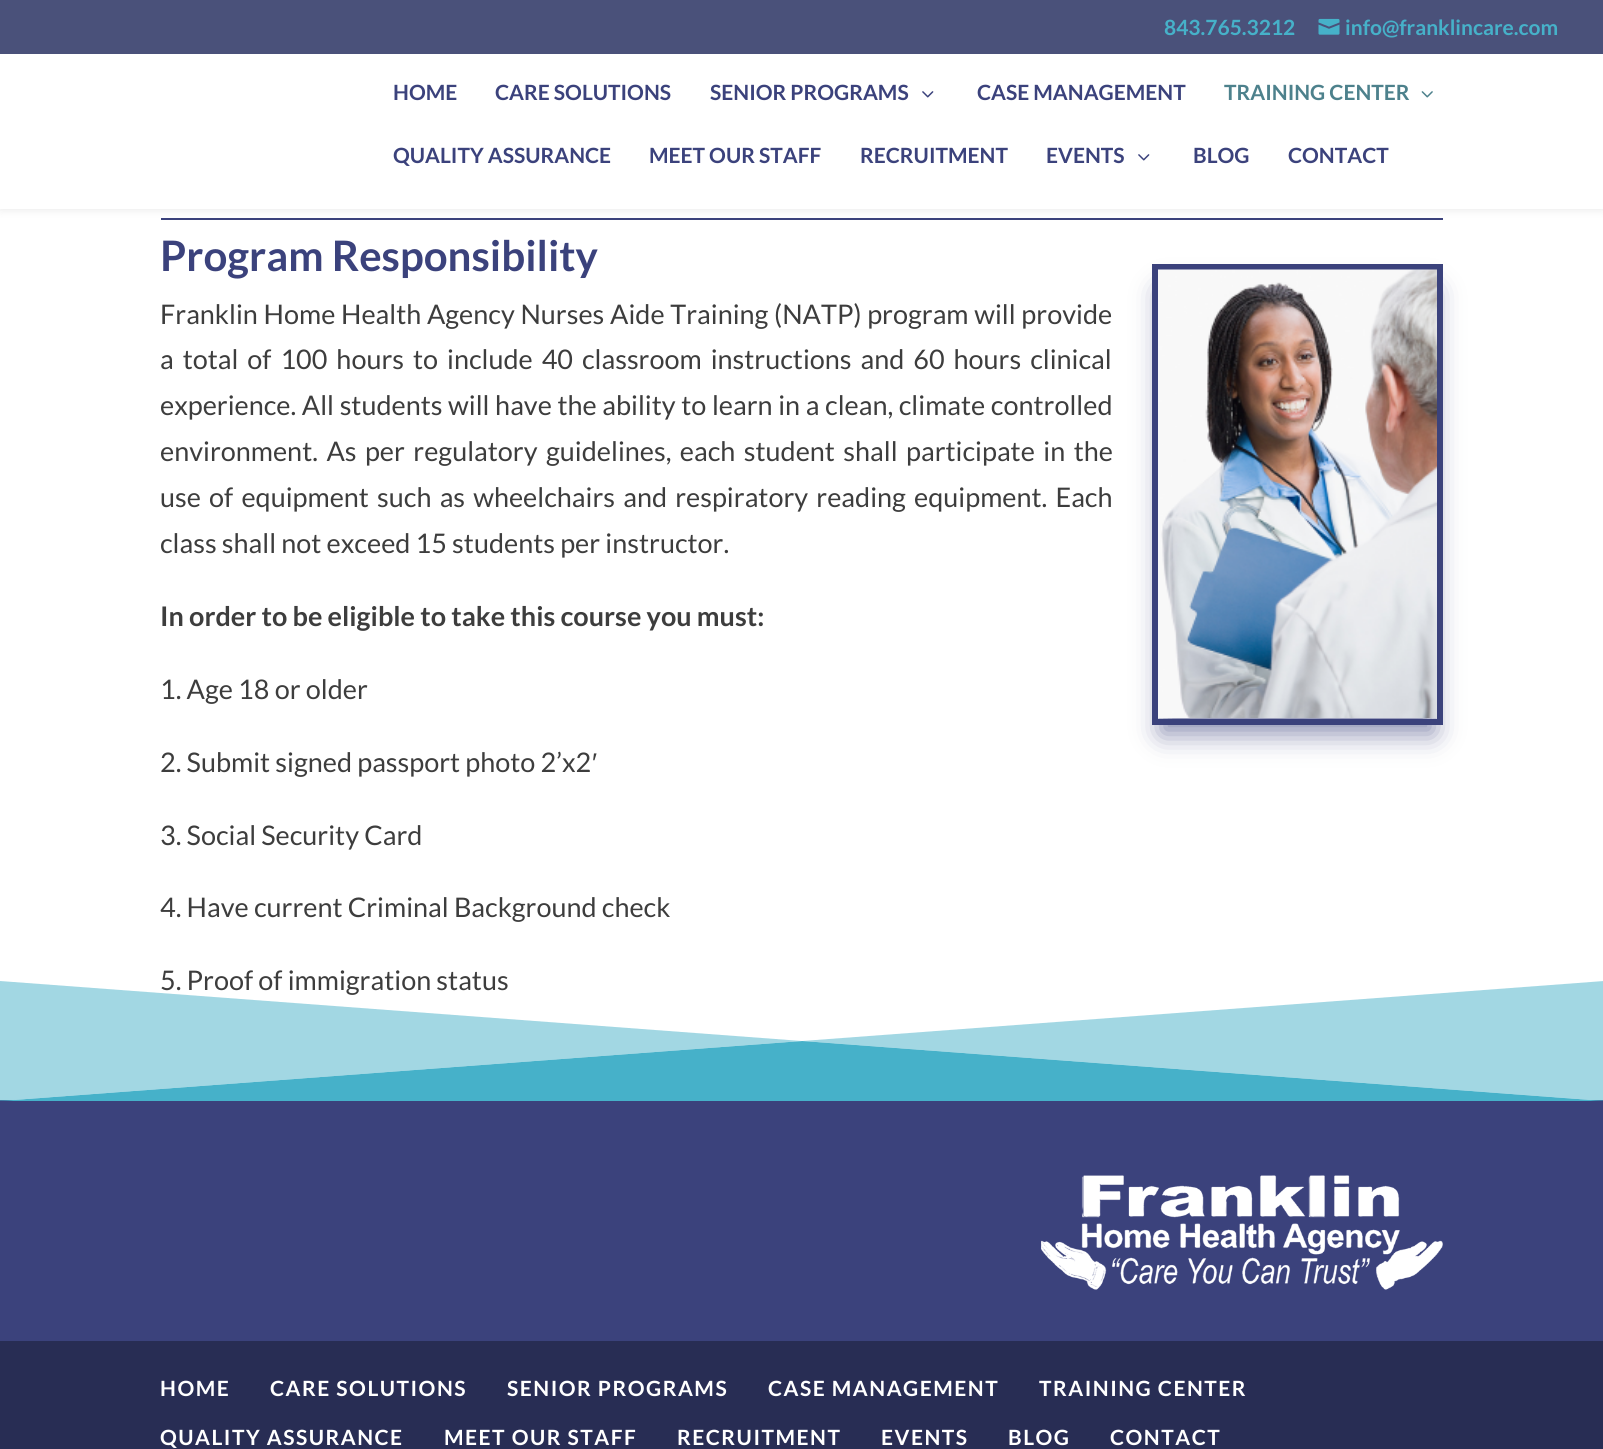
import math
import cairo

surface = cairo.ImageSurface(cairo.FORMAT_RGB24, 1603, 1449)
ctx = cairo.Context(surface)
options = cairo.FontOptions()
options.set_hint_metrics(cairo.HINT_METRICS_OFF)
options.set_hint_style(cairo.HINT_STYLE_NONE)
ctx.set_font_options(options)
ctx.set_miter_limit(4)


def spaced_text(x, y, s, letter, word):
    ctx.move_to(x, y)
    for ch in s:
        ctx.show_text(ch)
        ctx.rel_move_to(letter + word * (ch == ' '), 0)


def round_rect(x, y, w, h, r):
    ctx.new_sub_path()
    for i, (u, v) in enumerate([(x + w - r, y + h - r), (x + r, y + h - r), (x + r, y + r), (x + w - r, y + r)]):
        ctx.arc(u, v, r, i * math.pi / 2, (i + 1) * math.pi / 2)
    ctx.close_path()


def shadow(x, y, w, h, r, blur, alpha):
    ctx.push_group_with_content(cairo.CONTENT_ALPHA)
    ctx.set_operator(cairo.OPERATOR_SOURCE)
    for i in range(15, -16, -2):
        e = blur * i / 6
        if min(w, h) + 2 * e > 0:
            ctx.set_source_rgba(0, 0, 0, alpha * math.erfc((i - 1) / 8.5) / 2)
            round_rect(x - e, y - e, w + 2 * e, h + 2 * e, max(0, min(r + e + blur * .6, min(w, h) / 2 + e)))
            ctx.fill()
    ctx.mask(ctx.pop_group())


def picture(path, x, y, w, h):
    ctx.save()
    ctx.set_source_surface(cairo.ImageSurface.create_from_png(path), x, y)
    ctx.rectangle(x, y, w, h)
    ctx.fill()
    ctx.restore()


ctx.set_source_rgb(1, 1, 1)
ctx.paint()
ctx.set_source_rgb(0.231, 0.259, 0.486)
ctx.rectangle(161, 218, 1282, 2)
ctx.fill()
ctx.set_source_rgb(0, 0, 0)
shadow(0, 54, 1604, 155, 0, 5, 0.1)
ctx.set_source_rgb(0.29, 0.318, 0.478)
ctx.rectangle(0, 0, 1603, 54)
ctx.fill()
ctx.select_font_face("Lato", cairo.FONT_SLANT_NORMAL, cairo.FONT_WEIGHT_BOLD)
ctx.set_font_size(21)
ctx.set_source_rgb(0.275, 0.694, 0.788)
ctx.move_to(1164, 35)
ctx.show_text("843.765.3212")
picture("img1.png", 1318, 18, 22, 17)
ctx.move_to(1345, 35)
ctx.show_text("info@franklincare.com")
ctx.set_source_rgb(1, 1, 1)
ctx.rectangle(0, 54, 1603, 155)
ctx.fill()
ctx.set_source_rgb(0.231, 0.259, 0.486)
ctx.move_to(393, 100)
ctx.show_text("HOME")
ctx.move_to(495, 100)
ctx.show_text("CARE SOLUTIONS")
ctx.move_to(710, 100)
ctx.show_text("SENIOR PROGRAMS")
picture("img2.png", 922, 91, 12, 7)
ctx.move_to(977, 100)
ctx.show_text("CASE MANAGEMENT")
ctx.set_source_rgb(0.302, 0.506, 0.549)
ctx.move_to(1224, 100)
ctx.show_text("TRAINING CENTER")
picture("img3.png", 1421, 91, 12, 7)
ctx.set_source_rgb(0.231, 0.259, 0.486)
ctx.move_to(393, 163)
ctx.show_text("QUALITY ASSURANCE")
ctx.move_to(649, 163)
ctx.show_text("MEET OUR STAFF")
ctx.move_to(860, 163)
ctx.show_text("RECRUITMENT")
ctx.move_to(1046, 163)
ctx.show_text("EVENTS")
picture("img2.png", 1138, 154, 12, 7)
ctx.move_to(1193, 163)
ctx.show_text("BLOG")
ctx.move_to(1288, 163)
ctx.show_text("CONTACT")
ctx.set_font_size(42)
ctx.move_to(160, 271)
ctx.show_text("Program Responsibility")
ctx.select_font_face("Lato")
ctx.set_font_size(27)
ctx.set_source_rgb(0.239, 0.239, 0.239)
spaced_text(160, 324, "Franklin Home Health Agency Nurses Aide Training (NATP) program will provide", 0, 0.5)
spaced_text(160, 369, "a total of 100 hours to include 40 classroom instructions and 60 hours clinical", 0, 3.75)
spaced_text(160, 415, "experience. All students will have the ability to learn in a clean, climate controlled", 0, 0.4)
spaced_text(160, 461, "environment. As per regulatory guidelines, each student shall participate in the", 0, 3.25)
spaced_text(160, 507, "use of equipment such as wheelchairs and respiratory reading equipment. Each", 0, 3)
ctx.move_to(160, 553)
ctx.show_text("class shall not exceed 15 students per instructor.")
ctx.select_font_face("Lato", cairo.FONT_SLANT_NORMAL, cairo.FONT_WEIGHT_BOLD)
ctx.move_to(160, 626)
ctx.show_text("In order to be eligible to take this course you must:")
ctx.select_font_face("Lato")
ctx.move_to(160, 699)
ctx.show_text("1. Age 18 or older")
ctx.move_to(160, 772)
ctx.show_text("2. Submit signed passport photo 2’x2")
ctx.select_font_face("Liberation Sans")
ctx.move_to(592, 772)
ctx.show_text("′")
ctx.select_font_face("Lato")
ctx.move_to(160, 845)
ctx.show_text("3. Social Security Card")
ctx.move_to(160, 917)
ctx.show_text("4. Have current Criminal Background check")
ctx.set_source_rgb(0.231, 0.259, 0.486)
ctx.rectangle(0, 1100, 1603, 241)
ctx.fill()
ctx.set_source_rgba(0.275, 0.694, 0.788, 0.5)
ctx.new_path()
ctx.move_to(0, 1101)
ctx.line_to(802, 1041)
ctx.line_to(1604, 1101)
ctx.line_to(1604, 981)
ctx.line_to(802, 1041)
ctx.line_to(0, 981)
ctx.close_path()
ctx.fill()
ctx.set_source_rgb(0.239, 0.239, 0.239)
ctx.move_to(160, 990)
ctx.show_text("5. Proof of immigration status")
ctx.set_source_rgb(0.231, 0.259, 0.486)
shadow(1161, 291, 273, 443, 0, 13.5, 0.6)
ctx.rectangle(1155, 267, 285, 455)
ctx.set_source_rgb(0.231, 0.259, 0.486)
ctx.set_line_width(6)
ctx.stroke()
picture("img4.png", 1158, 269, 279, 449)
ctx.set_source_rgb(0.275, 0.694, 0.788)
ctx.new_path()
ctx.move_to(0, 1101)
ctx.line_to(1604, 1101)
ctx.line_to(802, 1041)
ctx.close_path()
ctx.fill()
picture("img5.png", 1041, 1175, 402, 115)
ctx.set_source_rgb(0.157, 0.176, 0.329)
ctx.rectangle(0, 1341, 1603, 108)
ctx.fill()
ctx.select_font_face("Lato", cairo.FONT_SLANT_NORMAL, cairo.FONT_WEIGHT_BOLD)
ctx.set_font_size(21)
ctx.set_source_rgb(1, 1, 1)
spaced_text(160, 1396, "HOME", 1.5, 0)
spaced_text(270, 1396, "CARE SOLUTIONS", 1.5, 0)
spaced_text(507, 1396, "SENIOR PROGRAMS", 1.5, 0)
spaced_text(768, 1396, "CASE MANAGEMENT", 1.5, 0)
spaced_text(1039, 1396, "TRAINING CENTER", 1.5, 0)
spaced_text(160, 1445, "QUALITY ASSURANCE", 1.5, 0)
spaced_text(444, 1445, "MEET OUR STAFF", 1.5, 0)
spaced_text(677, 1445, "RECRUITMENT", 1.5, 0)
spaced_text(881, 1445, "EVENTS", 1.5, 0)
spaced_text(1008, 1445, "BLOG", 1.5, 0)
spaced_text(1110, 1445, "CONTACT", 1.5, 0)
surface.write_to_png("page.png")
